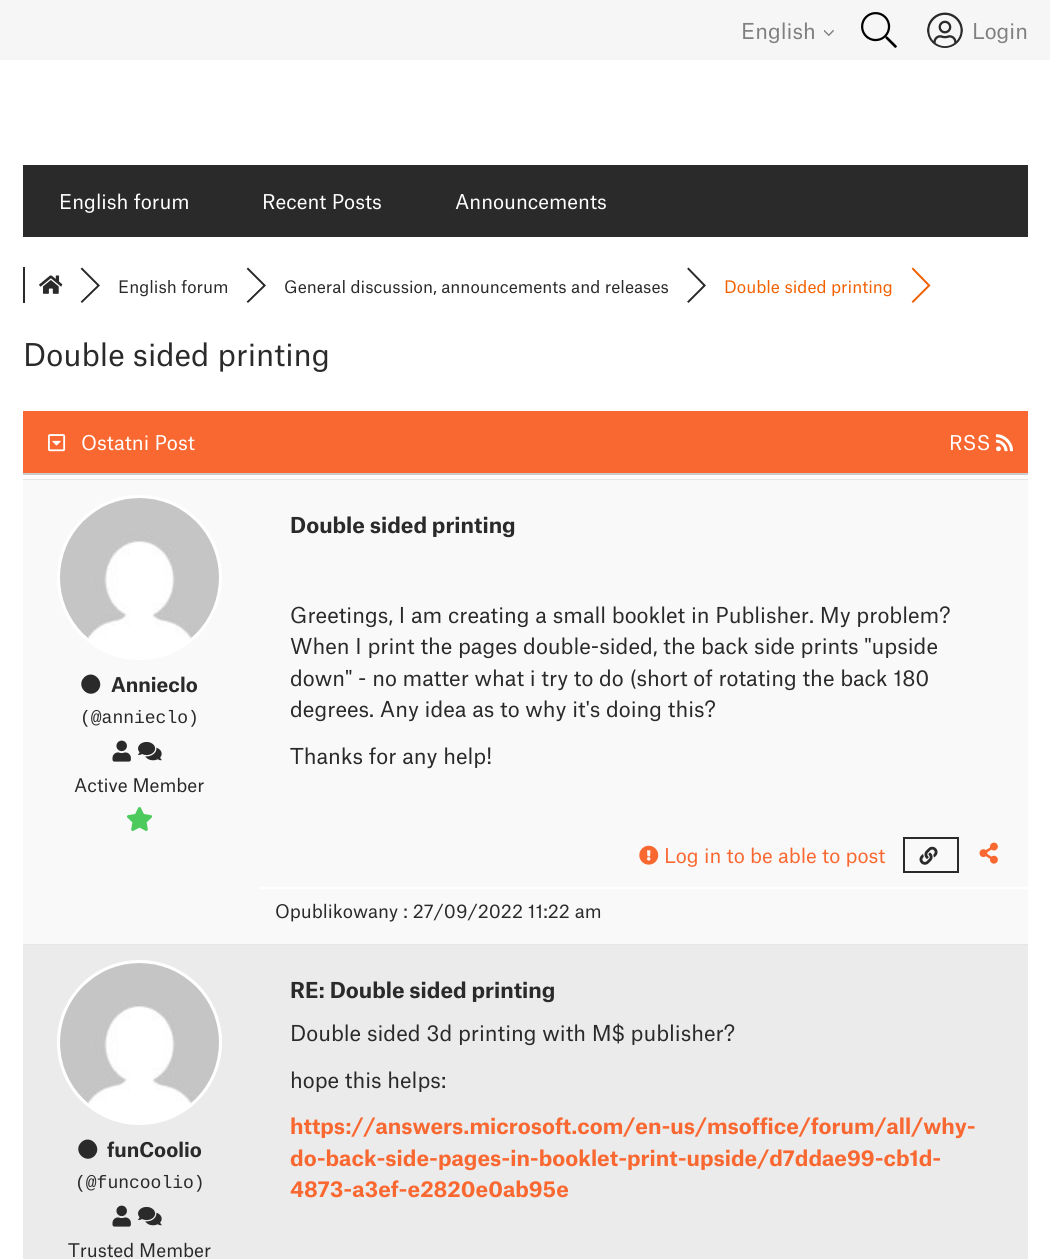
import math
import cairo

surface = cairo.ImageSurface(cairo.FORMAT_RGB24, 1050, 1259)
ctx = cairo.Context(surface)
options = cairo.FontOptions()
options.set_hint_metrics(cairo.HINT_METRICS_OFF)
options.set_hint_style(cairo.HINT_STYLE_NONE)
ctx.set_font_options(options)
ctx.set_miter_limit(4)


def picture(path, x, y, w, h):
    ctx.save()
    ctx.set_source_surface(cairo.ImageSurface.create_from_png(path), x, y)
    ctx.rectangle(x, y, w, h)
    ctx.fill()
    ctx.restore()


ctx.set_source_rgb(1, 1, 1)
ctx.paint()
ctx.set_source_rgb(0.961, 0.961, 0.961)
ctx.rectangle(0, 0, 1050, 60)
ctx.fill()
ctx.select_font_face("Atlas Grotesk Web")
ctx.set_font_size(21)
ctx.set_source_rgb(0.502, 0.502, 0.502)
ctx.move_to(741, 39)
ctx.show_text("English")
picture("img1.png", 824, 30, 10, 6)
picture("img2.png", 861, 12, 36, 36)
picture("img3.png", 927, 12, 36, 36)
ctx.move_to(972, 39)
ctx.show_text("Login")
ctx.set_source_rgb(0.165, 0.165, 0.165)
ctx.rectangle(23, 165, 1005, 72)
ctx.fill()
ctx.set_font_size(19.5)
ctx.set_source_rgb(1, 1, 1)
ctx.move_to(59, 209)
ctx.show_text("English forum")
ctx.move_to(262, 209)
ctx.show_text("Recent Posts")
ctx.move_to(455, 209)
ctx.show_text("Announcements")
ctx.set_source_rgb(0.165, 0.165, 0.165)
ctx.rectangle(23, 267, 2, 36)
ctx.fill()
picture("img4.png", 39, 275, 24, 19)
ctx.new_path()
ctx.move_to(82, 267.5)
ctx.line_to(80.5, 269)
ctx.line_to(97, 285.5)
ctx.line_to(80.5, 301.5)
ctx.line_to(82, 303)
ctx.line_to(100, 285.5)
ctx.close_path()
ctx.fill()
ctx.set_source_rgb(1, 1, 1)
ctx.new_path()
ctx.move_to(79, 267.5)
ctx.line_to(97, 285.5)
ctx.line_to(79, 303)
ctx.line_to(61.5, 285.5)
ctx.close_path()
ctx.fill()
ctx.set_font_size(16.5)
ctx.set_source_rgb(0.165, 0.165, 0.165)
ctx.move_to(118, 293)
ctx.show_text("English forum")
ctx.new_path()
ctx.move_to(248, 267.5)
ctx.line_to(246.5, 269)
ctx.line_to(263, 285.5)
ctx.line_to(246.5, 301.5)
ctx.line_to(248, 303)
ctx.line_to(266, 285.5)
ctx.close_path()
ctx.fill()
ctx.set_source_rgb(1, 1, 1)
ctx.new_path()
ctx.move_to(245, 267.5)
ctx.line_to(263, 285.5)
ctx.line_to(245, 303)
ctx.line_to(227.5, 285.5)
ctx.close_path()
ctx.fill()
ctx.set_source_rgb(0.165, 0.165, 0.165)
ctx.move_to(284, 293)
ctx.show_text("General discussion, announcements and releases")
ctx.new_path()
ctx.move_to(688.5, 267.5)
ctx.line_to(687, 269)
ctx.line_to(703, 285.5)
ctx.line_to(687, 301.5)
ctx.line_to(688.5, 303)
ctx.line_to(706, 285.5)
ctx.close_path()
ctx.fill()
ctx.set_source_rgb(1, 1, 1)
ctx.new_path()
ctx.move_to(685.5, 267.5)
ctx.line_to(703, 285.5)
ctx.line_to(685.5, 303)
ctx.line_to(667.5, 285.5)
ctx.close_path()
ctx.fill()
ctx.set_source_rgb(0.949, 0.376, 0)
ctx.move_to(724, 293)
ctx.show_text("Double sided printing")
ctx.new_path()
ctx.move_to(913, 267.5)
ctx.line_to(911.5, 269)
ctx.line_to(927.5, 285.5)
ctx.line_to(911.5, 301.5)
ctx.line_to(913, 303)
ctx.line_to(930.5, 285.5)
ctx.close_path()
ctx.fill()
ctx.set_source_rgb(1, 1, 1)
ctx.new_path()
ctx.move_to(910, 267.5)
ctx.line_to(927.5, 285.5)
ctx.line_to(910, 303)
ctx.line_to(892, 285.5)
ctx.close_path()
ctx.fill()
ctx.set_font_size(30)
ctx.set_source_rgb(0.165, 0.165, 0.165)
ctx.move_to(23, 366)
ctx.show_text("Double sided printing")
ctx.set_source_rgb(0.98, 0.408, 0.192)
ctx.rectangle(23, 411, 1005, 62)
ctx.fill()
ctx.set_source_rgb(0.8, 0.8, 0.8)
ctx.rectangle(23, 473, 1005, 2)
ctx.fill()
picture("img5.png", 48, 434, 18, 18)
ctx.set_font_size(19.5)
ctx.set_source_rgb(1, 1, 1)
ctx.move_to(81, 450)
ctx.show_text("Ostatni Post")
ctx.move_to(949, 450)
ctx.show_text("RSS")
picture("img6.png", 996, 434, 18, 18)
ctx.set_source_rgb(0.973, 0.973, 0.973)
ctx.rectangle(23, 480, 1005, 464)
ctx.fill()
ctx.set_source_rgb(0.902, 0.902, 0.902)
ctx.rectangle(23, 479, 1005, 1)
ctx.fill()
ctx.set_source_rgb(1, 1, 1)
ctx.arc(139.5, 577.5, 82.5, 0, 2 * math.pi)
ctx.fill()
picture("img7.png", 60, 498, 159, 141)
ctx.set_source_rgb(0.165, 0.165, 0.165)
ctx.new_path()
ctx.move_to(84, 677.5)
ctx.curve_to(93, 668.5, 106, 682, 97.5, 691)
ctx.curve_to(88.5, 699.5, 75.5, 686.5, 84, 677.5)
ctx.close_path()
ctx.fill()
ctx.select_font_face("Atlas Grotesk Web", cairo.FONT_SLANT_NORMAL, cairo.FONT_WEIGHT_BOLD)
ctx.move_to(111, 692)
ctx.show_text("Annieclo")
ctx.select_font_face("Liberation Mono")
ctx.set_font_size(18)
ctx.move_to(80, 723)
ctx.show_text("(@annieclo)")
picture("img8.png", 112, 740, 19, 22)
picture("img9.png", 138, 741, 24, 20)
ctx.select_font_face("Atlas Grotesk Web")
ctx.move_to(74, 792)
ctx.show_text("Active Member")
picture("img10.png", 127, 807, 25, 24)
ctx.select_font_face("Atlas Grotesk Web", cairo.FONT_SLANT_NORMAL, cairo.FONT_WEIGHT_BOLD)
ctx.set_font_size(21)
ctx.move_to(290, 533)
ctx.show_text("Double sided printing")
ctx.select_font_face("Atlas Grotesk Web")
ctx.move_to(290, 623)
ctx.show_text("Greetings, I am creating a small booklet in Publisher. My problem?")
ctx.move_to(290, 654)
ctx.show_text("When I print the pages double-sided, the back side prints \"upside")
ctx.move_to(290, 686)
ctx.show_text("down\" - no matter what i try to do (short of rotating the back 180")
ctx.move_to(290, 717)
ctx.show_text("degrees. Any idea as to why it's doing this?")
ctx.move_to(290, 764)
ctx.show_text("Thanks for any help!")
picture("img11.png", 639, 845, 20, 20)
ctx.set_font_size(19.5)
ctx.set_source_rgb(0.98, 0.408, 0.192)
ctx.move_to(664, 863)
ctx.show_text("Log in to be able to post")
ctx.rectangle(904, 838, 54, 34)
ctx.set_source_rgb(0.165, 0.165, 0.165)
ctx.stroke()
picture("img12.png", 919, 846, 19, 19)
picture("img13.png", 979, 842, 19, 22)
ctx.set_source_rgb(1, 1, 1)
ctx.rectangle(260, 887, 768, 2)
ctx.fill()
ctx.set_font_size(18)
ctx.set_source_rgb(0.165, 0.165, 0.165)
ctx.move_to(275, 918)
ctx.show_text("Opublikowany : 27/09/2022 11:22 am")
ctx.set_source_rgb(0.902, 0.902, 0.902)
ctx.rectangle(23, 944, 1005, 1)
ctx.fill()
ctx.set_source_rgb(0.918, 0.918, 0.918)
ctx.rectangle(23, 945, 1005, 314)
ctx.fill()
ctx.set_source_rgb(1, 1, 1)
ctx.arc(139.5, 1042.5, 82.5, 0, 2 * math.pi)
ctx.fill()
picture("img14.png", 60, 963, 159, 141)
ctx.set_source_rgb(0.165, 0.165, 0.165)
ctx.new_path()
ctx.move_to(81, 1142.5)
ctx.curve_to(90, 1133.5, 103, 1147, 94.5, 1156)
ctx.curve_to(85.5, 1164.5, 72.5, 1151.5, 81, 1142.5)
ctx.close_path()
ctx.fill()
ctx.select_font_face("Atlas Grotesk Web", cairo.FONT_SLANT_NORMAL, cairo.FONT_WEIGHT_BOLD)
ctx.set_font_size(19.5)
ctx.move_to(107, 1157)
ctx.show_text("funCoolio")
ctx.select_font_face("Liberation Mono")
ctx.set_font_size(18)
ctx.move_to(75, 1188)
ctx.show_text("(@funcoolio)")
picture("img15.png", 112, 1205, 19, 22)
picture("img16.png", 138, 1206, 24, 20)
ctx.select_font_face("Atlas Grotesk Web")
ctx.move_to(68, 1257)
ctx.show_text("Trusted Member")
ctx.select_font_face("Atlas Grotesk Web", cairo.FONT_SLANT_NORMAL, cairo.FONT_WEIGHT_BOLD)
ctx.set_font_size(21)
ctx.move_to(290, 998)
ctx.show_text("RE: Double sided printing")
ctx.select_font_face("Atlas Grotesk Web")
ctx.move_to(290, 1041)
ctx.show_text("Double sided 3d printing with M$ publisher?")
ctx.move_to(290, 1088)
ctx.show_text("hope this helps:")
ctx.select_font_face("Atlas Grotesk Web", cairo.FONT_SLANT_NORMAL, cairo.FONT_WEIGHT_BOLD)
ctx.set_source_rgb(0.98, 0.408, 0.192)
ctx.move_to(290, 1134)
ctx.show_text("https://answers.microsoft.com/en-us/msoffice/forum/all/why-")
ctx.move_to(290, 1166)
ctx.show_text("do-back-side-pages-in-booklet-print-upside/d7ddae99-cb1d-")
ctx.move_to(290, 1197)
ctx.show_text("4873-a3ef-e2820e0ab95e")
surface.write_to_png("page.png")
